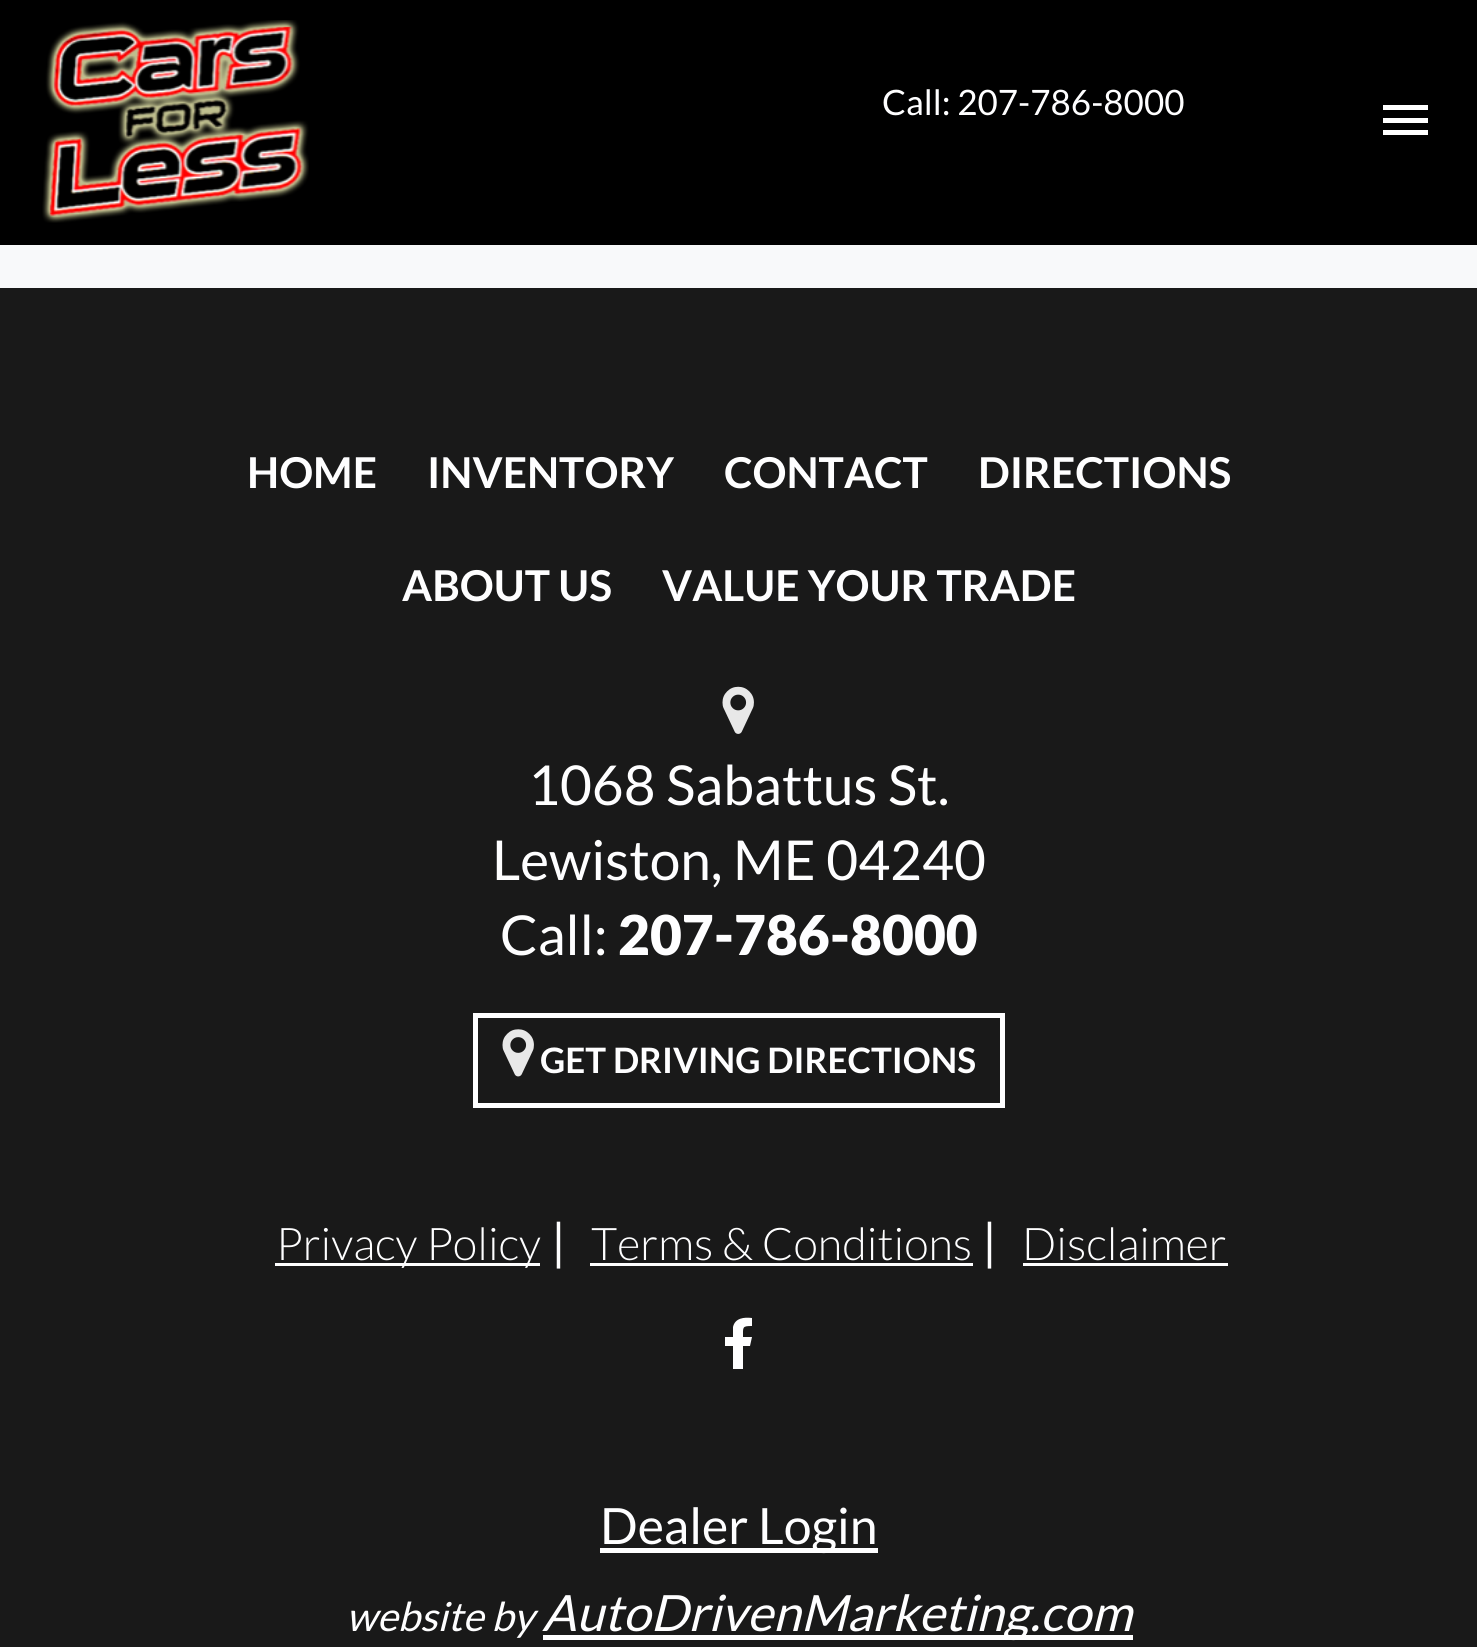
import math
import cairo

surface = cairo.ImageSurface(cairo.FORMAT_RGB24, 1477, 1647)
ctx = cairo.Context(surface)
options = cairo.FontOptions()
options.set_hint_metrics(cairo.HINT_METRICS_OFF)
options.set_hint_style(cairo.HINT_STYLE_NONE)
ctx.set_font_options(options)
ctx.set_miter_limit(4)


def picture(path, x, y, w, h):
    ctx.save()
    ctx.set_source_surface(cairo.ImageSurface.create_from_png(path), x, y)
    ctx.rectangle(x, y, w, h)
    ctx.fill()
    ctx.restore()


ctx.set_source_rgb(0.969, 0.973, 0.98)
ctx.paint()
ctx.set_source_rgb(0, 0, 0)
ctx.rectangle(0, 0, 1477, 245)
ctx.fill()
picture("img1.png", 42, 20, 267, 203)
ctx.select_font_face("Lato")
ctx.set_font_size(35)
ctx.set_source_rgb(0.996, 0.996, 1)
ctx.move_to(882, 115)
ctx.show_text("Call: 207-786-8000")
ctx.set_source_rgb(1, 1, 1)
ctx.rectangle(1383, 118, 45, 5)
ctx.fill()
ctx.rectangle(1383, 105, 45, 5)
ctx.fill()
ctx.rectangle(1383, 130, 45, 5)
ctx.fill()
ctx.set_source_rgb(0.098, 0.098, 0.098)
ctx.rectangle(0, 288, 1477, 1359)
ctx.fill()
ctx.select_font_face("Lato", cairo.FONT_SLANT_NORMAL, cairo.FONT_WEIGHT_BOLD)
ctx.set_font_size(42.5)
ctx.set_source_rgb(0.996, 0.996, 1)
ctx.move_to(247, 488)
ctx.show_text("HOME")
ctx.move_to(427, 488)
ctx.show_text("INVENTORY")
ctx.move_to(724, 488)
ctx.show_text("CONTACT")
ctx.move_to(978, 488)
ctx.show_text("DIRECTIONS")
ctx.move_to(402, 601)
ctx.show_text("ABOUT US")
ctx.move_to(662, 601)
ctx.show_text("VALUE YOUR TRADE")
picture("img2.png", 722, 686, 32, 48)
ctx.select_font_face("Lato")
ctx.set_font_size(55)
ctx.move_to(528, 805)
ctx.show_text("1068 Sabattus St.")
ctx.move_to(492, 880)
ctx.show_text("Lewiston, ME 04240")
ctx.move_to(500, 955)
ctx.show_text("Call:")
ctx.select_font_face("Lato Black")
ctx.move_to(618, 955)
ctx.show_text("207-786-8000")
ctx.rectangle(475.5, 1015.5, 527, 90)
ctx.set_line_width(5)
ctx.stroke()
picture("img3.png", 502, 1029, 32, 48)
ctx.select_font_face("Lato", cairo.FONT_SLANT_NORMAL, cairo.FONT_WEIGHT_BOLD)
ctx.set_font_size(35)
ctx.move_to(540, 1073)
ctx.show_text("GET DRIVING DIRECTIONS")
ctx.rectangle(275, 1263, 265, 3)
ctx.fill()
ctx.select_font_face("Lato Light")
ctx.set_font_size(45)
ctx.move_to(276, 1260)
ctx.show_text("Privacy Policy")
ctx.select_font_face("Lato")
ctx.set_font_size(50)
ctx.move_to(551, 1260)
ctx.show_text("|")
ctx.select_font_face("Lato Light")
ctx.set_font_size(45)
ctx.move_to(591, 1260)
ctx.show_text("Terms & Conditions")
ctx.rectangle(590, 1263, 383, 3)
ctx.fill()
ctx.select_font_face("Lato")
ctx.set_font_size(50)
ctx.move_to(982, 1260)
ctx.show_text("|")
ctx.select_font_face("Lato Light")
ctx.set_font_size(45)
ctx.move_to(1022, 1260)
ctx.show_text("Disclaimer")
ctx.rectangle(1023, 1263, 205, 3)
ctx.fill()
ctx.new_path()
ctx.move_to(752, 1318)
ctx.line_to(752, 1326)
ctx.curve_to(742, 1326, 743, 1327, 743, 1337)
ctx.line_to(752, 1337)
ctx.line_to(750, 1346)
ctx.line_to(743, 1346)
ctx.line_to(743, 1369)
ctx.line_to(733, 1369)
ctx.line_to(733, 1346)
ctx.line_to(725, 1346)
ctx.line_to(725, 1337)
ctx.line_to(733, 1337)
ctx.line_to(733, 1327)
ctx.curve_to(735, 1318, 744, 1317, 752, 1318)
ctx.close_path()
ctx.fill()
ctx.rectangle(600, 1548, 278, 5)
ctx.fill()
ctx.select_font_face("Lato")
ctx.set_font_size(50)
ctx.move_to(600, 1544)
ctx.show_text("Dealer Login")
ctx.select_font_face("Lato", cairo.FONT_SLANT_ITALIC)
ctx.set_font_size(40)
ctx.move_to(346, 1631)
ctx.show_text("website by")
ctx.rectangle(543, 1635, 590, 5)
ctx.fill()
ctx.set_font_size(50)
ctx.move_to(542, 1631)
ctx.show_text("AutoDrivenMarketing.com")
surface.write_to_png("page.png")
